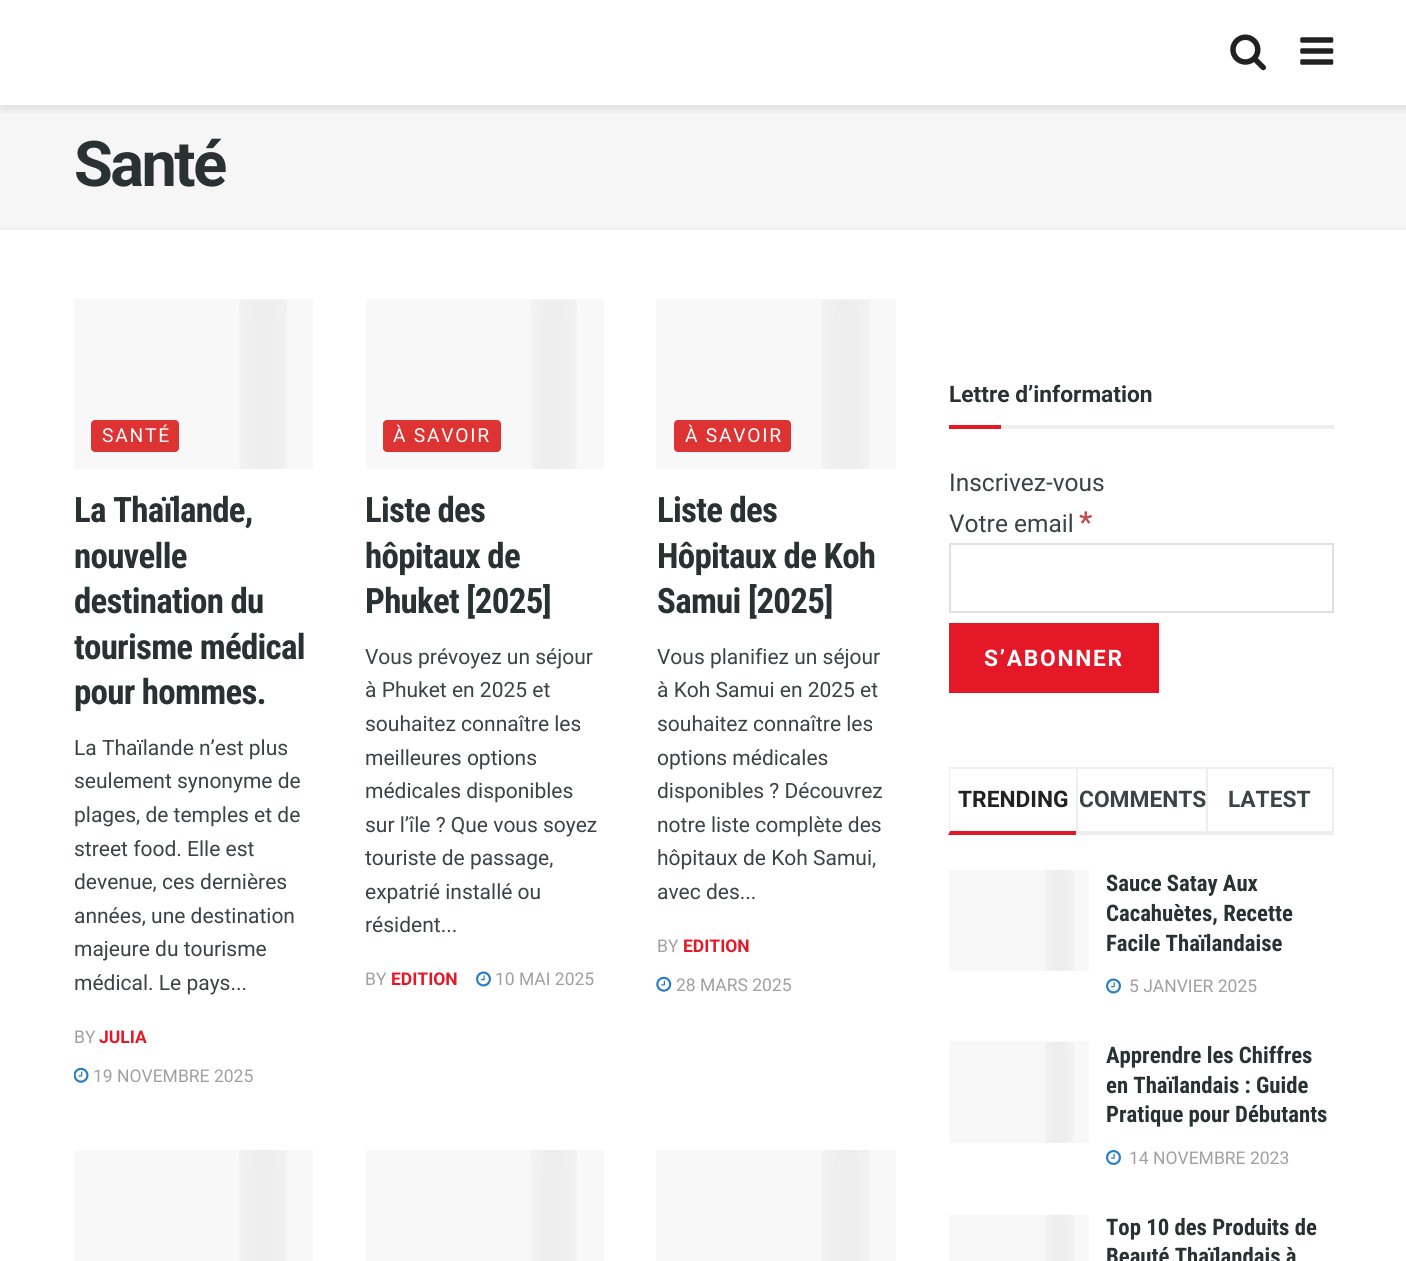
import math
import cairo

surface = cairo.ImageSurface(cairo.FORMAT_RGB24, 1406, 1261)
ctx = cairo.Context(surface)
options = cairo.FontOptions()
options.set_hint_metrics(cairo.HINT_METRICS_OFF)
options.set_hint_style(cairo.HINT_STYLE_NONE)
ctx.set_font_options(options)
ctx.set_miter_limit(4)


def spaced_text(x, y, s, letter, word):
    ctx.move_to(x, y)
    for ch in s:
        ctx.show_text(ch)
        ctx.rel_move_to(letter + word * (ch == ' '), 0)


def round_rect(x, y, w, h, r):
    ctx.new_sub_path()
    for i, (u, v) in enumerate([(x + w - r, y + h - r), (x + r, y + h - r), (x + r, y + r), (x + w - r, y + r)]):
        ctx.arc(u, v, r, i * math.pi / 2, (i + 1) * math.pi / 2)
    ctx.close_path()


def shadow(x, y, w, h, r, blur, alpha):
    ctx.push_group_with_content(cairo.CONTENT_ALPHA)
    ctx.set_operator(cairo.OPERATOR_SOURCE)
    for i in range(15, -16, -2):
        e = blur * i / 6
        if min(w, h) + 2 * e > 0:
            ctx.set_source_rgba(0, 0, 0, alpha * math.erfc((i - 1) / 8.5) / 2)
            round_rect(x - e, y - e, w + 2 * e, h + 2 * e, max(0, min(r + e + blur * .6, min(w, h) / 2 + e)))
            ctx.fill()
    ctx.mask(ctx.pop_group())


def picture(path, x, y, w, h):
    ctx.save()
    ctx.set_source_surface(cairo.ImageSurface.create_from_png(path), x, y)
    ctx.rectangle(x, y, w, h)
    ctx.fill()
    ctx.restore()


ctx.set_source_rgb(1, 1, 1)
ctx.paint()
ctx.set_source_rgb(0.961, 0.961, 0.961)
ctx.rectangle(0, 105, 1406, 123)
ctx.fill()
ctx.save()
ctx.rectangle(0, 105, 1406, 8)
ctx.clip()
ctx.set_source_rgb(0, 0, 0)
shadow(0, 4, 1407, 105, 0, 5, 0.1)
ctx.restore()
picture("img1.png", 1230, 34, 36, 37)
picture("img2.png", 1300, 37, 34, 28)
ctx.set_source_rgb(0.933, 0.933, 0.933)
ctx.rectangle(0, 228, 1406, 2)
ctx.fill()
ctx.select_font_face("Roboto", cairo.FONT_SLANT_NORMAL, cairo.FONT_WEIGHT_BOLD)
ctx.set_font_size(63)
ctx.set_source_rgb(0.161, 0.192, 0.196)
spaced_text(74, 186, "Santé", -2.5, 0)
ctx.set_source_rgb(0.969, 0.969, 0.969)
ctx.rectangle(74, 299, 239, 170)
ctx.fill()
picture("img3.png", 239, 299, 48, 170)
ctx.set_source_rgb(0.867, 0.2, 0.2)
round_rect(91, 420, 88, 32, 4)
ctx.fill()
ctx.select_font_face("Roboto")
ctx.set_font_size(19.25)
ctx.set_source_rgb(1, 1, 1)
spaced_text(102, 442, "SANTÉ", 1.75, 0)
ctx.select_font_face("Roboto Condensed", cairo.FONT_SLANT_NORMAL, cairo.FONT_WEIGHT_BOLD)
ctx.set_font_size(35)
ctx.set_source_rgb(0.161, 0.192, 0.196)
spaced_text(74, 522, "La Thaïlande,", -0.75, 0)
spaced_text(74, 568, "nouvelle", -0.75, 0)
spaced_text(74, 613, "destination du", -0.75, 0)
ctx.save()
ctx.rectangle(74, 299, 822, 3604)
ctx.clip()
spaced_text(74, 659, "tourisme médical", -0.75, 0)
ctx.restore()
spaced_text(74, 704, "pour hommes.", -0.75, 0)
ctx.select_font_face("Roboto")
ctx.set_font_size(21)
ctx.set_source_rgb(0.235, 0.263, 0.267)
ctx.move_to(74, 755)
ctx.show_text("La Thaïlande n’est plus")
ctx.move_to(74, 788)
ctx.show_text("seulement synonyme de")
ctx.move_to(74, 822)
ctx.show_text("plages, de temples et de")
ctx.move_to(74, 856)
ctx.show_text("street food. Elle est")
ctx.move_to(74, 889)
ctx.show_text("devenue, ces dernières")
ctx.move_to(74, 923)
ctx.show_text("années, une destination")
ctx.move_to(74, 956)
ctx.show_text("majeure du tourisme")
ctx.move_to(74, 990)
ctx.show_text("médical. Le pays...")
ctx.set_font_size(17.5)
ctx.set_source_rgb(0.627, 0.627, 0.627)
ctx.move_to(74, 1043)
ctx.show_text("BY")
ctx.select_font_face("Roboto", cairo.FONT_SLANT_NORMAL, cairo.FONT_WEIGHT_BOLD)
ctx.set_source_rgb(0.898, 0.094, 0.157)
ctx.move_to(99, 1043)
ctx.show_text("JULIA")
picture("img4.png", 74, 1067, 15, 16)
ctx.select_font_face("Roboto")
ctx.set_source_rgb(0.627, 0.627, 0.627)
ctx.move_to(93, 1082)
ctx.show_text("19 NOVEMBRE 2025")
ctx.set_source_rgb(0.969, 0.969, 0.969)
ctx.rectangle(366, 299, 238, 170)
ctx.fill()
picture("img5.png", 531, 299, 46, 170)
ctx.set_source_rgb(0.867, 0.2, 0.2)
round_rect(383, 420, 118, 32, 4)
ctx.fill()
ctx.set_font_size(19.25)
ctx.set_source_rgb(1, 1, 1)
spaced_text(393, 442, "À SAVOIR", 1.75, 0)
ctx.select_font_face("Roboto Condensed", cairo.FONT_SLANT_NORMAL, cairo.FONT_WEIGHT_BOLD)
ctx.set_font_size(35)
ctx.set_source_rgb(0.161, 0.192, 0.196)
spaced_text(365, 522, "Liste des", -0.75, 0)
spaced_text(365, 568, "hôpitaux de", -0.75, 0)
spaced_text(365, 613, "Phuket [2025]", -0.75, 0)
ctx.select_font_face("Roboto")
ctx.set_font_size(21)
ctx.set_source_rgb(0.235, 0.263, 0.267)
ctx.move_to(365, 664)
ctx.show_text("Vous prévoyez un séjour")
ctx.move_to(365, 697)
ctx.show_text("à Phuket en 2025 et")
ctx.move_to(365, 731)
ctx.show_text("souhaitez connaître les")
ctx.move_to(365, 765)
ctx.show_text("meilleures options")
ctx.move_to(365, 798)
ctx.show_text("médicales disponibles")
ctx.move_to(365, 832)
ctx.show_text("sur l’île ? Que vous soyez")
ctx.move_to(365, 865)
ctx.show_text("touriste de passage,")
ctx.move_to(365, 899)
ctx.show_text("expatrié installé ou")
ctx.move_to(365, 932)
ctx.show_text("résident...")
ctx.set_font_size(17.5)
ctx.set_source_rgb(0.627, 0.627, 0.627)
ctx.move_to(365, 985)
ctx.show_text("BY")
ctx.select_font_face("Roboto", cairo.FONT_SLANT_NORMAL, cairo.FONT_WEIGHT_BOLD)
ctx.set_source_rgb(0.898, 0.094, 0.157)
ctx.move_to(391, 985)
ctx.show_text("EDITION")
picture("img6.png", 476, 971, 15, 16)
ctx.select_font_face("Roboto")
ctx.set_source_rgb(0.627, 0.627, 0.627)
ctx.move_to(495, 985)
ctx.show_text("10 MAI 2025")
ctx.set_source_rgb(0.969, 0.969, 0.969)
ctx.rectangle(656, 299, 240, 170)
ctx.fill()
picture("img7.png", 822, 299, 48, 170)
ctx.set_source_rgb(0.867, 0.2, 0.2)
round_rect(674, 420, 117, 32, 4)
ctx.fill()
ctx.set_font_size(19.25)
ctx.set_source_rgb(1, 1, 1)
spaced_text(685, 442, "À SAVOIR", 1.75, 0)
ctx.select_font_face("Roboto Condensed", cairo.FONT_SLANT_NORMAL, cairo.FONT_WEIGHT_BOLD)
ctx.set_font_size(35)
ctx.set_source_rgb(0.161, 0.192, 0.196)
spaced_text(657, 522, "Liste des", -0.75, 0)
spaced_text(657, 568, "Hôpitaux de Koh", -0.75, 0)
spaced_text(657, 613, "Samui [2025]", -0.75, 0)
ctx.select_font_face("Roboto")
ctx.set_font_size(21)
ctx.set_source_rgb(0.235, 0.263, 0.267)
ctx.move_to(657, 664)
ctx.show_text("Vous planifiez un séjour")
ctx.move_to(657, 697)
ctx.show_text("à Koh Samui en 2025 et")
ctx.move_to(657, 731)
ctx.show_text("souhaitez connaître les")
ctx.move_to(657, 765)
ctx.show_text("options médicales")
ctx.move_to(657, 798)
ctx.show_text("disponibles ? Découvrez")
ctx.move_to(657, 832)
ctx.show_text("notre liste complète des")
ctx.move_to(657, 865)
ctx.show_text("hôpitaux de Koh Samui,")
ctx.move_to(657, 899)
ctx.show_text("avec des...")
ctx.set_font_size(17.5)
ctx.set_source_rgb(0.627, 0.627, 0.627)
ctx.move_to(657, 952)
ctx.show_text("BY")
ctx.select_font_face("Roboto", cairo.FONT_SLANT_NORMAL, cairo.FONT_WEIGHT_BOLD)
ctx.set_source_rgb(0.898, 0.094, 0.157)
ctx.move_to(683, 952)
ctx.show_text("EDITION")
picture("img8.png", 656, 976, 16, 16)
ctx.select_font_face("Roboto")
ctx.set_source_rgb(0.627, 0.627, 0.627)
ctx.move_to(676, 991)
ctx.show_text("28 MARS 2025")
ctx.set_source_rgb(0.969, 0.969, 0.969)
ctx.rectangle(74, 1150, 239, 111)
ctx.fill()
picture("img9.png", 239, 1150, 48, 111)
ctx.rectangle(366, 1150, 238, 111)
ctx.fill()
picture("img10.png", 531, 1150, 46, 111)
ctx.rectangle(656, 1150, 240, 111)
ctx.fill()
picture("img11.png", 822, 1150, 48, 111)
ctx.set_source_rgb(0.933, 0.933, 0.933)
ctx.rectangle(1001, 425, 333, 4)
ctx.fill()
ctx.select_font_face("Roboto", cairo.FONT_SLANT_NORMAL, cairo.FONT_WEIGHT_BOLD)
ctx.set_font_size(22.75)
ctx.set_source_rgb(0.161, 0.192, 0.196)
ctx.move_to(949, 402)
ctx.show_text("Lettre d’information")
ctx.set_source_rgb(0.898, 0.094, 0.157)
ctx.rectangle(949, 425, 52, 4)
ctx.fill()
ctx.select_font_face("Roboto")
ctx.set_font_size(24.5)
ctx.set_source_rgb(0.235, 0.263, 0.267)
ctx.move_to(949, 491)
ctx.show_text("Inscrivez-vous")
ctx.move_to(949, 532)
ctx.show_text("Votre email")
ctx.select_font_face("Roboto", cairo.FONT_SLANT_NORMAL, cairo.FONT_WEIGHT_BOLD)
ctx.set_font_size(29)
ctx.set_source_rgb(0.749, 0.302, 0.302)
ctx.move_to(1079, 532)
ctx.show_text("*")
ctx.rectangle(950, 544, 383, 68)
ctx.set_source_rgb(0.878, 0.878, 0.878)
ctx.stroke()
ctx.set_source_rgb(0.898, 0.094, 0.157)
ctx.rectangle(949, 623, 210, 70)
ctx.fill()
ctx.set_font_size(22.75)
ctx.set_source_rgb(1, 1, 1)
spaced_text(984, 666, "S’ABONNER", 1.75, 0)
ctx.set_source_rgb(0.933, 0.933, 0.933)
ctx.rectangle(949, 767, 385, 2)
ctx.fill()
ctx.set_source_rgb(0.898, 0.094, 0.157)
ctx.new_path()
ctx.move_to(1076, 835)
ctx.line_to(948, 835)
ctx.line_to(950, 831)
ctx.line_to(1076, 831)
ctx.close_path()
ctx.fill()
ctx.save()
ctx.rectangle(949, 767, 385, 68)
ctx.clip()
ctx.set_source_rgb(0.933, 0.933, 0.933)
ctx.new_path()
ctx.move_to(948, 835)
ctx.line_to(948, 766)
ctx.line_to(950, 768)
ctx.line_to(950, 831)
ctx.close_path()
ctx.fill()
ctx.restore()
ctx.set_source_rgb(0.129, 0.129, 0.129)
ctx.move_to(958, 807)
ctx.show_text("TRENDING")
ctx.set_source_rgb(0.933, 0.933, 0.933)
ctx.rectangle(1076, 831, 130, 4)
ctx.fill()
ctx.rectangle(1076, 767, 2, 68)
ctx.fill()
ctx.set_source_rgb(0.235, 0.263, 0.267)
ctx.move_to(1079, 807)
ctx.show_text("COMMENTS")
ctx.set_source_rgb(0.933, 0.933, 0.933)
ctx.rectangle(1332, 767, 2, 68)
ctx.fill()
ctx.rectangle(1206, 831, 128, 4)
ctx.fill()
ctx.rectangle(1206, 767, 2, 68)
ctx.fill()
ctx.set_source_rgb(0.235, 0.263, 0.267)
ctx.move_to(1228, 807)
ctx.show_text("LATEST")
ctx.set_source_rgb(0.969, 0.969, 0.969)
ctx.rectangle(949, 870, 140, 101)
ctx.fill()
picture("img12.png", 1045, 870, 29, 101)
ctx.select_font_face("Roboto Condensed", cairo.FONT_SLANT_NORMAL, cairo.FONT_WEIGHT_BOLD)
ctx.set_source_rgb(0.161, 0.192, 0.196)
ctx.move_to(1106, 891)
ctx.show_text("Sauce Satay Aux")
ctx.move_to(1106, 921)
ctx.show_text("Cacahuètes, Recette")
ctx.move_to(1106, 951)
ctx.show_text("Facile Thaïlandaise")
picture("img6.png", 1106, 978, 15, 16)
ctx.select_font_face("Roboto")
ctx.set_font_size(17.5)
ctx.set_source_rgb(0.627, 0.627, 0.627)
ctx.move_to(1129, 992)
ctx.show_text("5 JANVIER 2025")
ctx.set_source_rgb(0.969, 0.969, 0.969)
ctx.rectangle(949, 1041, 140, 102)
ctx.fill()
picture("img13.png", 1045, 1042, 29, 101)
ctx.select_font_face("Roboto Condensed", cairo.FONT_SLANT_NORMAL, cairo.FONT_WEIGHT_BOLD)
ctx.set_font_size(22.75)
ctx.set_source_rgb(0.161, 0.192, 0.196)
ctx.move_to(1106, 1063)
ctx.show_text("Apprendre les Chiffres")
ctx.move_to(1106, 1093)
ctx.show_text("en Thaïlandais : Guide")
ctx.move_to(1106, 1122)
ctx.show_text("Pratique pour Débutants")
picture("img14.png", 1106, 1150, 15, 15)
ctx.select_font_face("Roboto")
ctx.set_font_size(17.5)
ctx.set_source_rgb(0.627, 0.627, 0.627)
ctx.move_to(1129, 1164)
ctx.show_text("14 NOVEMBRE 2023")
ctx.set_source_rgb(0.969, 0.969, 0.969)
ctx.rectangle(949, 1215, 140, 46)
ctx.fill()
picture("img15.png", 1045, 1214, 29, 47)
ctx.select_font_face("Roboto Condensed", cairo.FONT_SLANT_NORMAL, cairo.FONT_WEIGHT_BOLD)
ctx.set_font_size(22.75)
ctx.set_source_rgb(0.161, 0.192, 0.196)
ctx.move_to(1106, 1235)
ctx.show_text("Top 10 des Produits de")
ctx.move_to(1106, 1264)
ctx.show_text("Beauté Thaïlandais à")
surface.write_to_png("page.png")
